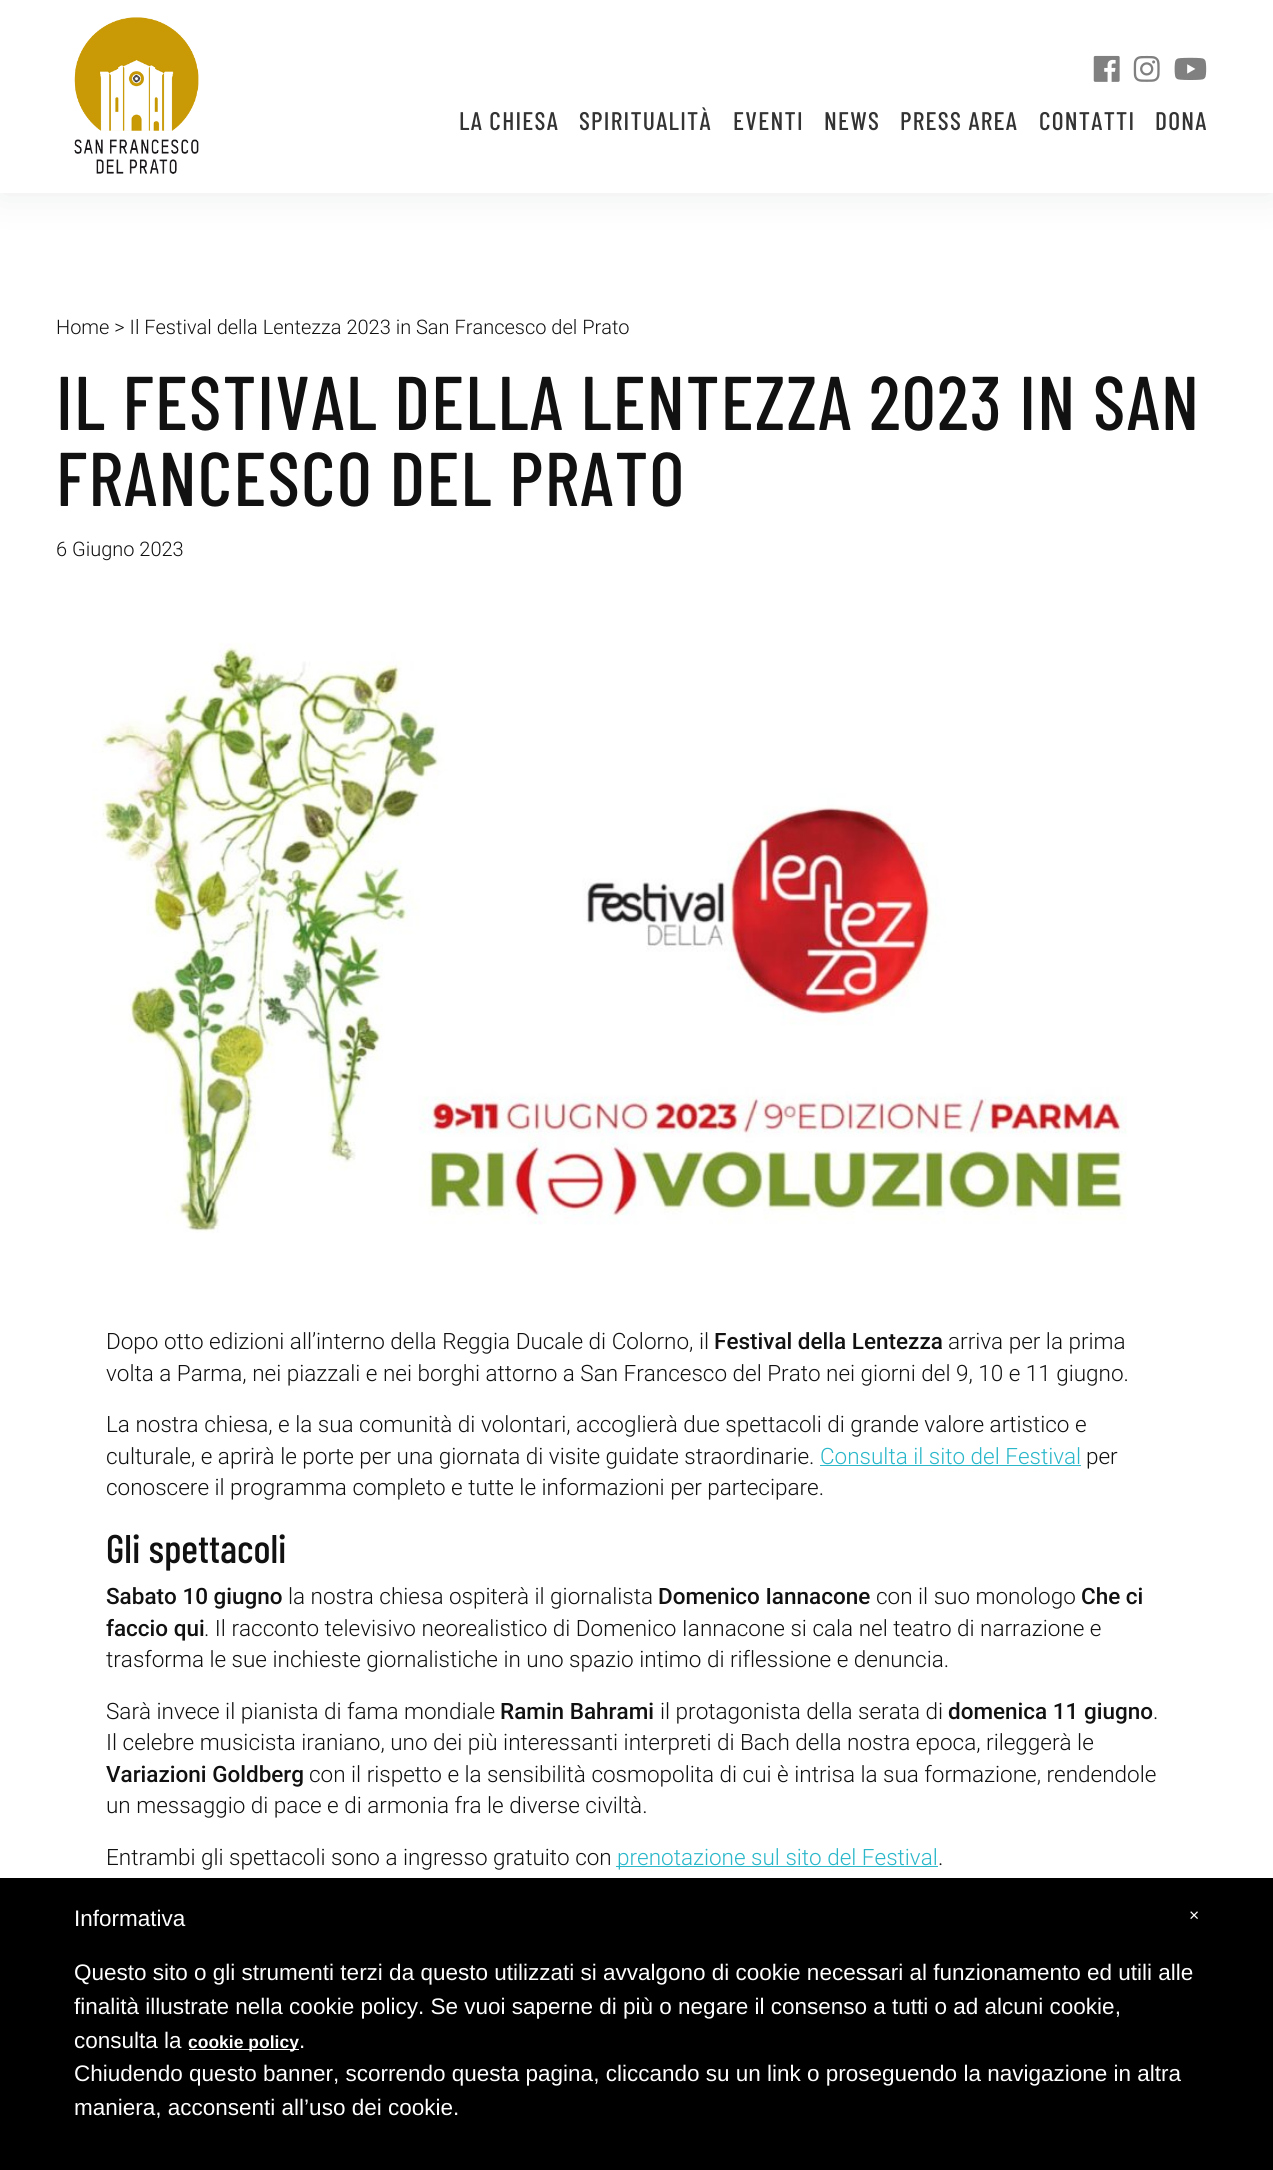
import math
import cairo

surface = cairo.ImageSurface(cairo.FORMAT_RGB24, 1273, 2170)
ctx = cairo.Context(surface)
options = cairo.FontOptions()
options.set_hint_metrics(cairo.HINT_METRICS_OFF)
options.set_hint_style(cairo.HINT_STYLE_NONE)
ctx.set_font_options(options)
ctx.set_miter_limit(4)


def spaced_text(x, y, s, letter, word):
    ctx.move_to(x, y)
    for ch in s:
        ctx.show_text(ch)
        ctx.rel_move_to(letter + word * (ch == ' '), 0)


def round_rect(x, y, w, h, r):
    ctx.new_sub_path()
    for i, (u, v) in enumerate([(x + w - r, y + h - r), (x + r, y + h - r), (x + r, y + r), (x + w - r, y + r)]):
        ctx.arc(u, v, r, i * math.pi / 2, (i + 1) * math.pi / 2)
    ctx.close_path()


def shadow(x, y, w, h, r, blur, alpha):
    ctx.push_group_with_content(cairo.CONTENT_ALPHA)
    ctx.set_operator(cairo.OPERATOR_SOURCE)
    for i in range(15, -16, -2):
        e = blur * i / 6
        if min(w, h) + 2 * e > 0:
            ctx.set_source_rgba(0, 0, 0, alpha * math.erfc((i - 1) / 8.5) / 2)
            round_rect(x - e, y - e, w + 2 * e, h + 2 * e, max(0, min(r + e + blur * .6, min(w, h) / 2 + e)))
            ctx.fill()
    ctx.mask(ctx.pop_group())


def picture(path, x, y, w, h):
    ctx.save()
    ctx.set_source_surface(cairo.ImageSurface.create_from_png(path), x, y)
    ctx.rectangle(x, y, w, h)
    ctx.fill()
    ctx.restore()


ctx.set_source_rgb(1, 1, 1)
ctx.paint()
ctx.set_source_rgb(0.161, 0.188, 0.259)
shadow(0, 0, 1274, 193, 0, 20, 0.1)
ctx.set_source_rgb(1, 1, 1)
ctx.rectangle(0, 0, 1273, 193)
ctx.fill()
picture("img1.png", 74, 17, 125, 157)
picture("img2.png", 1093, 55, 27, 27)
picture("img3.png", 1133, 55, 27, 27)
picture("img4.png", 1174, 57, 33, 23)
ctx.select_font_face("Barlow Condensed Medium")
ctx.set_font_size(25.5)
ctx.set_source_rgb(0.2, 0.2, 0.2)
spaced_text(459, 130, "LA CHIESA", 1.25, 0)
spaced_text(579, 130, "SPIRITUALITÀ", 1.25, 0)
spaced_text(733, 130, "EVENTI", 1.25, 0)
spaced_text(824, 130, "NEWS", 1.25, 0)
spaced_text(900, 130, "PRESS AREA", 1.25, 0)
spaced_text(1039, 130, "CONTATTI", 1.25, 0)
spaced_text(1155, 130, "DONA", 1.25, 0)
ctx.select_font_face("Roboto Light")
ctx.set_font_size(20)
ctx.set_source_rgb(0.067, 0.067, 0.067)
ctx.move_to(56, 334)
ctx.show_text("Home > Il Festival della Lentezza 2023 in San Francesco del Prato")
ctx.select_font_face("Barlow Condensed Medium")
ctx.set_font_size(76)
spaced_text(56, 430, "IL FESTIVAL DELLA LENTEZZA 2023 IN SAN", 1.25, 0)
spaced_text(56, 506, "FRANCESCO DEL PRATO", 1.25, 0)
ctx.select_font_face("Roboto Light")
ctx.set_font_size(20)
ctx.move_to(56, 556)
ctx.show_text("6 Giugno 2023")
picture("img5.png", 92, 643, 1035, 590)
ctx.set_font_size(22.5)
ctx.move_to(106, 1349)
ctx.show_text("Dopo otto edizioni all’interno della Reggia Ducale di Colorno, il")
ctx.select_font_face("Roboto Medium")
ctx.move_to(714, 1349)
ctx.show_text("Festival della Lentezza")
ctx.select_font_face("Roboto Light")
ctx.move_to(948, 1349)
ctx.show_text("arriva per la prima")
ctx.move_to(106, 1381)
ctx.show_text("volta a Parma, nei piazzali e nei borghi attorno a San Francesco del Prato nei giorni del 9, 10 e 11 giugno.")
ctx.move_to(106, 1432)
ctx.show_text("La nostra chiesa, e la sua comunità di volontari, accoglierà due spettacoli di grande valore artistico e")
ctx.move_to(106, 1464)
ctx.show_text("culturale, e aprirà le porte per una giornata di visite guidate straordinarie.")
ctx.set_source_rgb(0.165, 0.718, 0.792)
ctx.move_to(820, 1464)
ctx.show_text("Consulta il sito del Festival")
ctx.rectangle(820, 1465, 261, 1)
ctx.fill()
ctx.set_source_rgb(0.067, 0.067, 0.067)
ctx.move_to(1086, 1464)
ctx.show_text("per")
ctx.move_to(106, 1495)
ctx.show_text("conoscere il programma completo e tutte le informazioni per partecipare.")
ctx.select_font_face("Barlow Condensed Medium")
ctx.set_font_size(40)
ctx.move_to(106, 1563)
ctx.show_text("Gli spettacoli")
ctx.select_font_face("Roboto Medium")
ctx.set_font_size(22.5)
ctx.move_to(106, 1604)
ctx.show_text("Sabato 10 giugno")
ctx.select_font_face("Roboto Light")
ctx.move_to(288, 1604)
ctx.show_text("la nostra chiesa ospiterà il giornalista")
ctx.select_font_face("Roboto Medium")
ctx.move_to(658, 1604)
ctx.show_text("Domenico Iannacone")
ctx.select_font_face("Roboto Light")
ctx.move_to(876, 1604)
ctx.show_text("con il suo monologo")
ctx.select_font_face("Roboto Medium")
ctx.move_to(1081, 1604)
ctx.show_text("Che ci")
ctx.move_to(106, 1636)
ctx.show_text("faccio qui")
ctx.select_font_face("Roboto Light")
ctx.move_to(204, 1636)
ctx.show_text(". Il racconto televisivo neorealistico di Domenico Iannacone si cala nel teatro di narrazione e")
ctx.move_to(106, 1667)
ctx.show_text("trasforma le sue inchieste giornalistiche in uno spazio intimo di riflessione e denuncia.")
ctx.move_to(106, 1719)
ctx.show_text("Sarà invece il pianista di fama mondiale")
ctx.select_font_face("Roboto Medium")
ctx.move_to(500, 1719)
ctx.show_text("Ramin Bahrami")
ctx.select_font_face("Roboto Light")
ctx.move_to(660, 1719)
ctx.show_text("il protagonista della serata di")
ctx.select_font_face("Roboto Medium")
ctx.move_to(948, 1719)
ctx.show_text("domenica 11 giugno")
ctx.select_font_face("Roboto Light")
ctx.move_to(1153, 1719)
ctx.show_text(".")
ctx.move_to(106, 1750)
ctx.show_text("Il celebre musicista iraniano, uno dei più interessanti interpreti di Bach della nostra epoca, rileggerà le")
ctx.select_font_face("Roboto Medium")
ctx.move_to(106, 1782)
ctx.show_text("Variazioni Goldberg")
ctx.select_font_face("Roboto Light")
ctx.move_to(309, 1782)
ctx.show_text("con il rispetto e la sensibilità cosmopolita di cui è intrisa la sua formazione, rendendole")
ctx.move_to(106, 1813)
ctx.show_text("un messaggio di pace e di armonia fra le diverse civiltà.")
ctx.move_to(106, 1865)
ctx.show_text("Entrambi gli spettacoli sono a ingresso gratuito con")
ctx.set_source_rgb(0.165, 0.718, 0.792)
ctx.rectangle(616, 1866, 322, 1)
ctx.fill()
ctx.move_to(617, 1865)
ctx.show_text("prenotazione sul sito del Festival")
ctx.set_source_rgb(0.067, 0.067, 0.067)
ctx.move_to(938, 1865)
ctx.show_text(".")
ctx.set_source_rgb(0, 0, 0)
ctx.rectangle(0, 1878, 1273, 292)
ctx.fill()
ctx.select_font_face("Liberation Sans")
ctx.set_source_rgb(1, 1, 1)
ctx.move_to(74, 1926)
ctx.show_text("Informativa")
ctx.move_to(74, 1980)
ctx.show_text("Questo sito o gli strumenti terzi da questo utilizzati si avvalgono di cookie necessari al funzionamento ed utili alle")
ctx.move_to(74, 2014)
ctx.show_text("finalità illustrate nella cookie policy. Se vuoi saperne di più o negare il consenso a tutti o ad alcuni cookie,")
ctx.move_to(74, 2048)
ctx.show_text("consulta la")
ctx.rectangle(189, 2049, 110, 1)
ctx.fill()
ctx.select_font_face("Liberation Sans", cairo.FONT_SLANT_NORMAL, cairo.FONT_WEIGHT_BOLD)
ctx.set_font_size(17.5)
ctx.move_to(188, 2048)
ctx.show_text("cookie policy")
ctx.select_font_face("Liberation Sans")
ctx.set_font_size(22.5)
ctx.move_to(299, 2048)
ctx.show_text(".")
ctx.move_to(74, 2081)
ctx.show_text("Chiudendo questo banner, scorrendo questa pagina, cliccando su un link o proseguendo la navigazione in altra")
ctx.move_to(74, 2115)
ctx.show_text("maniera, acconsenti all’uso dei cookie.")
ctx.set_font_size(17.5)
ctx.move_to(1189, 1921)
ctx.show_text("×")
surface.write_to_png("page.png")
